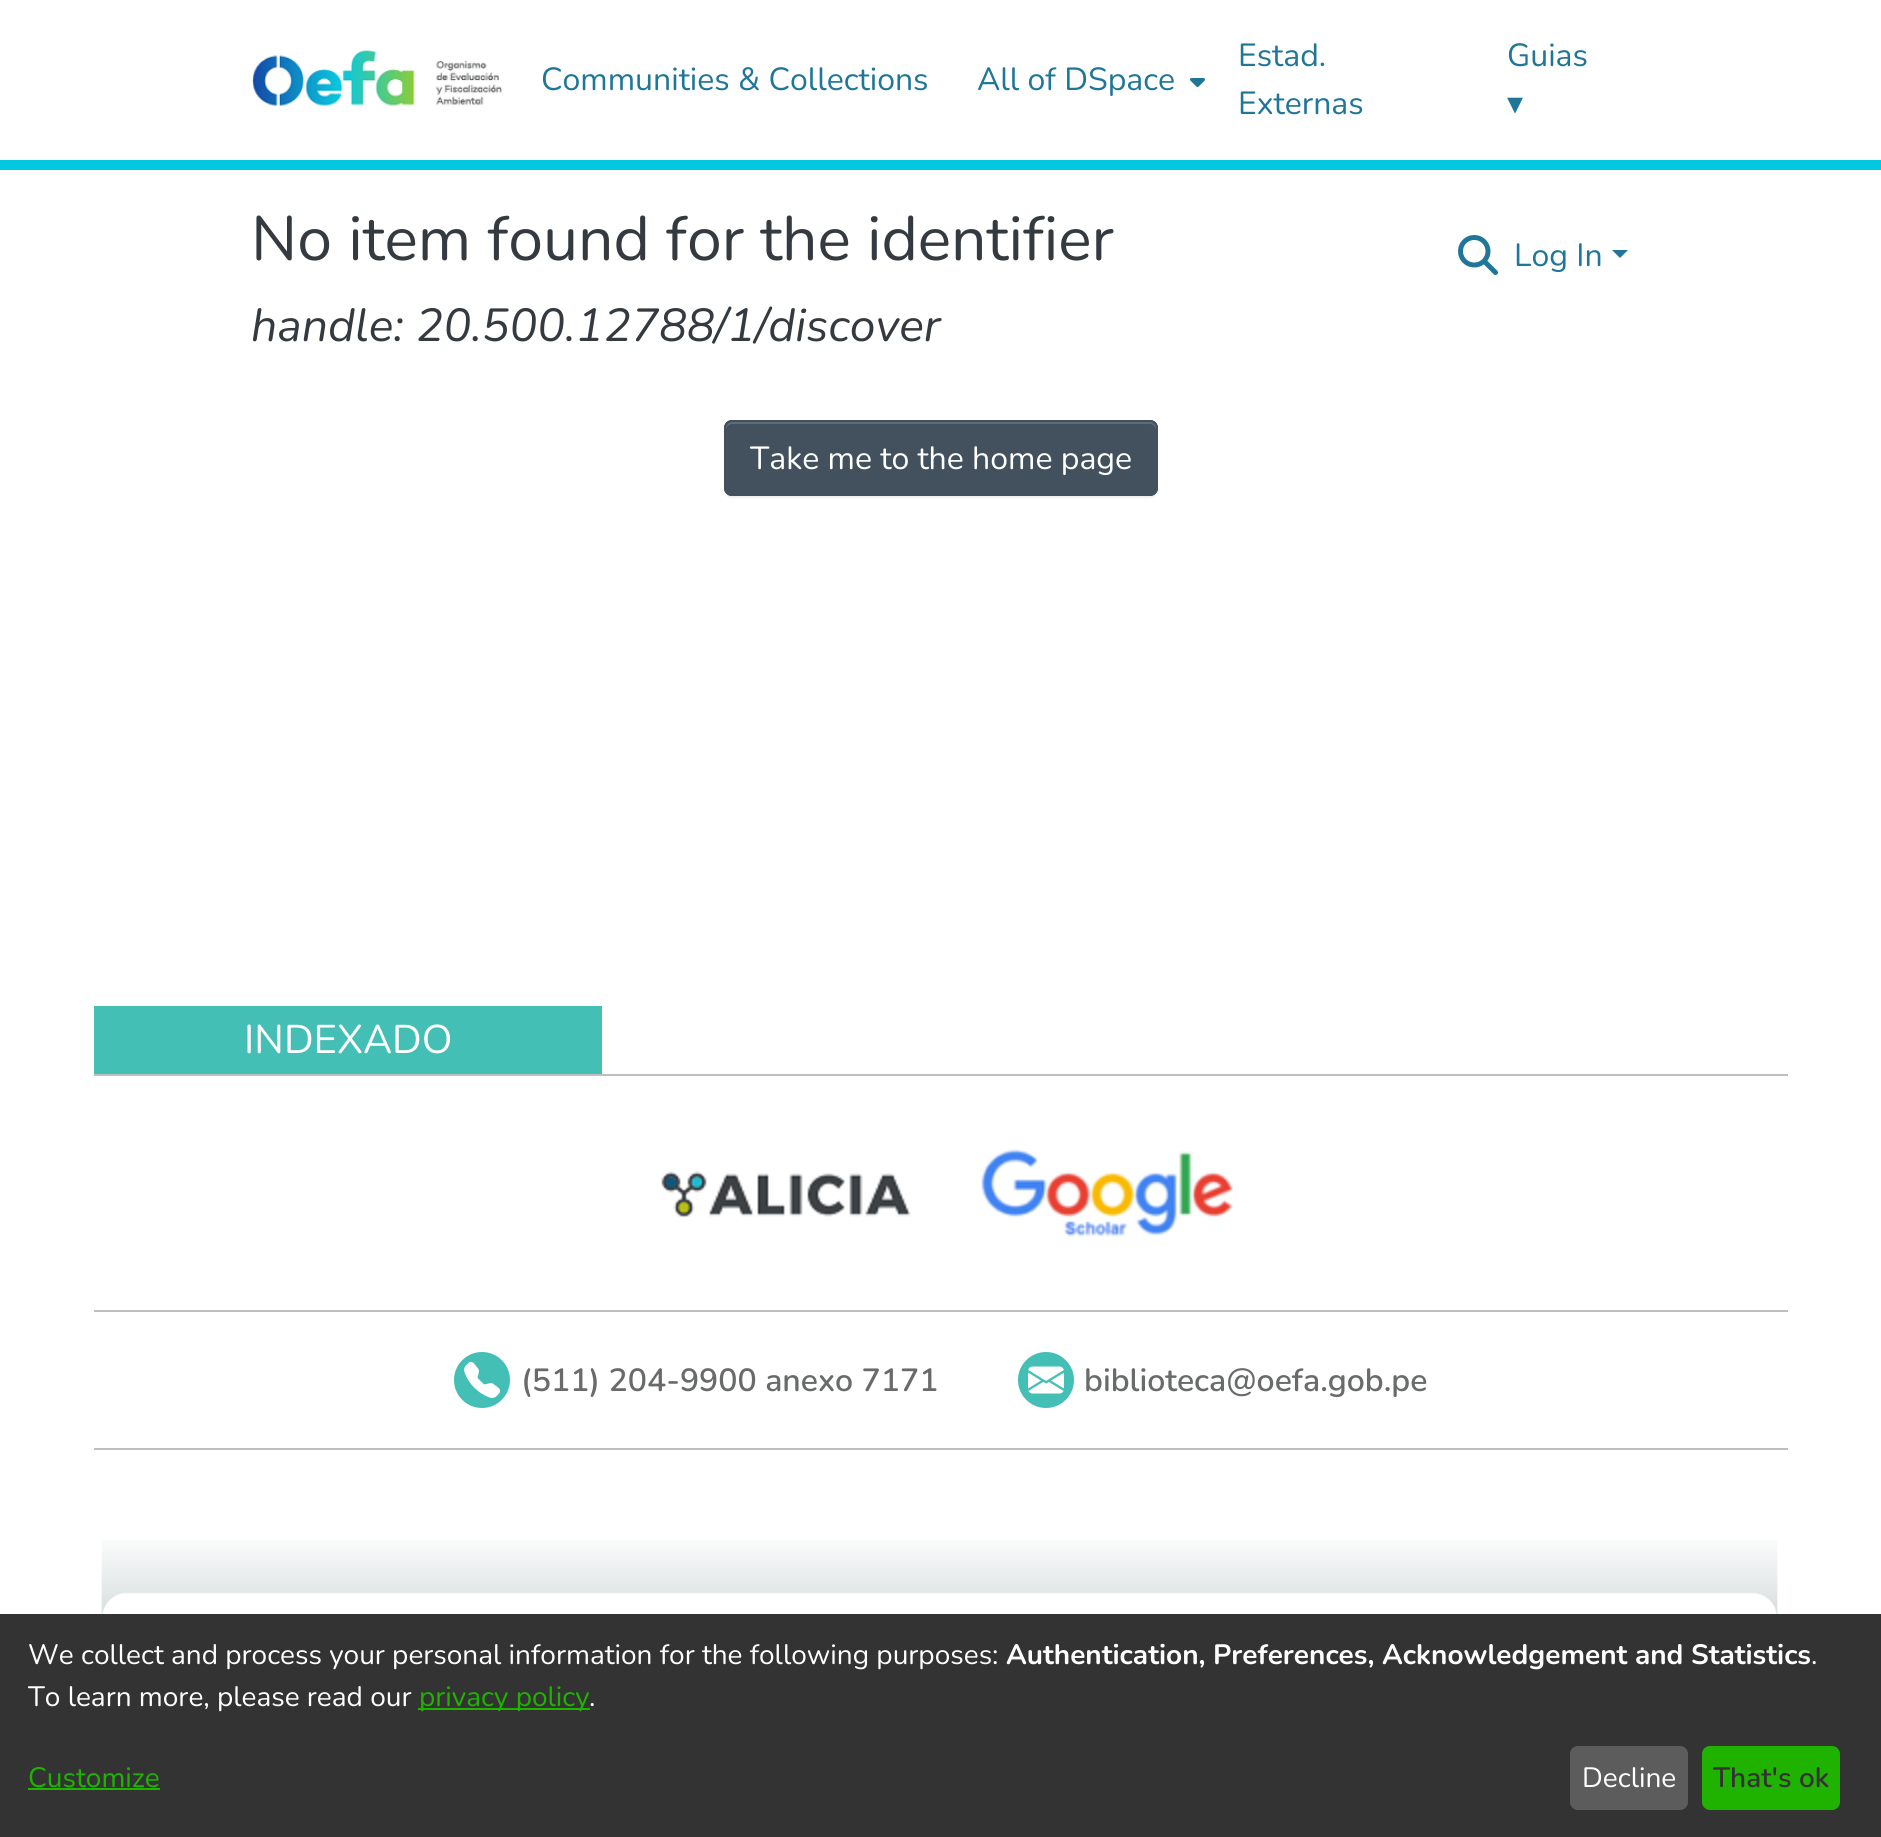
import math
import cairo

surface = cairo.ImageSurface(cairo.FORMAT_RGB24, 1881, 1837)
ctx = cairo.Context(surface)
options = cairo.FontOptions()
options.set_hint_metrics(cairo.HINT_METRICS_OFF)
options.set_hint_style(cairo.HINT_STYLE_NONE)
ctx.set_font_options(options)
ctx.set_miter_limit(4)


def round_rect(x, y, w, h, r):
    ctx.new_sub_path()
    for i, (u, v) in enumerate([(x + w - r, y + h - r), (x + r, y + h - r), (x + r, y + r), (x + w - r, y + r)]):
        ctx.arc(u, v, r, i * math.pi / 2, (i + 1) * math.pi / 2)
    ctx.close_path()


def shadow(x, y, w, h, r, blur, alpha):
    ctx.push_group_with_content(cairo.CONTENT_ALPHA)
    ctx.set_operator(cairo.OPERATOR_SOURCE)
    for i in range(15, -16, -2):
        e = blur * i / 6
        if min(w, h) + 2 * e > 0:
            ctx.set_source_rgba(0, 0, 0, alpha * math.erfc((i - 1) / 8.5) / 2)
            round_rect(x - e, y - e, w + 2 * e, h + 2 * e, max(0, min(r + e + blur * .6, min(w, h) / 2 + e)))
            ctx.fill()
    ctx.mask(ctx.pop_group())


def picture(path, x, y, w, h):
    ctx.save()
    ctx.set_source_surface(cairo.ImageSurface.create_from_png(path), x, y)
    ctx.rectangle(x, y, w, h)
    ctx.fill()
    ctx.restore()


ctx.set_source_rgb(1, 1, 1)
ctx.paint()
ctx.set_source_rgb(0, 0.784, 0.886)
ctx.rectangle(0, 160, 1881, 10)
ctx.fill()
picture("img1.png", 252, 50, 250, 57)
ctx.select_font_face("Nunito")
ctx.set_font_size(32)
ctx.set_source_rgb(0.125, 0.463, 0.596)
ctx.move_to(541, 90)
ctx.show_text("Communities & Collections")
ctx.move_to(977, 90)
ctx.show_text("All of DSpace")
picture("img2.png", 1190, 78, 15, 9)
ctx.move_to(1238, 66)
ctx.show_text("Estad.")
ctx.move_to(1238, 114)
ctx.show_text("Externas")
ctx.move_to(1507, 66)
ctx.show_text("Guias")
ctx.select_font_face("DejaVu Sans")
ctx.move_to(1507, 114)
ctx.show_text("▾")
picture("img3.png", 1458, 235, 40, 40)
ctx.select_font_face("Nunito")
ctx.move_to(1514, 266)
ctx.show_text("Log In")
ctx.new_path()
ctx.move_to(1612, 250)
ctx.line_to(1628, 250)
ctx.line_to(1620, 258)
ctx.close_path()
ctx.fill()
ctx.set_font_size(62.5)
ctx.set_source_rgb(0.204, 0.227, 0.251)
ctx.move_to(251, 260)
ctx.show_text("No item found for the identifier")
ctx.select_font_face("Nunito", cairo.FONT_SLANT_ITALIC)
ctx.set_font_size(46.25)
ctx.move_to(251, 341)
ctx.show_text("handle: 20.500.12788/1/discover")
ctx.set_source_rgb(0, 0, 0)
shadow(724, 422, 434, 76, 8, 1, 0.07)
ctx.set_source_rgb(0.263, 0.318, 0.373)
round_rect(724, 420, 434, 76, 8)
ctx.fill()
ctx.set_source_rgb(0.373, 0.42, 0.467)
ctx.new_path()
ctx.move_to(732, 424)
ctx.line_to(1150, 424)
ctx.curve_to(1153, 424, 1156, 427, 1156, 430)
ctx.line_to(1156, 428)
ctx.curve_to(1156, 425, 1153, 422, 1150, 422)
ctx.line_to(732, 422)
ctx.curve_to(729, 422, 726, 425, 726, 428)
ctx.line_to(726, 430)
ctx.curve_to(726, 427, 729, 424, 732, 424)
ctx.close_path()
ctx.fill()
round_rect(725, 421, 432, 74, 7)
ctx.set_source_rgb(0.263, 0.318, 0.373)
ctx.stroke()
ctx.select_font_face("Nunito")
ctx.set_font_size(32)
ctx.set_source_rgb(1, 1, 1)
ctx.move_to(750, 469)
ctx.show_text("Take me to the home page")
ctx.set_source_rgb(0.749, 0.749, 0.749)
ctx.rectangle(94, 1310, 1694, 2)
ctx.fill()
ctx.rectangle(94, 1074, 1694, 2)
ctx.fill()
ctx.set_source_rgb(0.267, 0.749, 0.71)
ctx.rectangle(94, 1006, 508, 68)
ctx.fill()
ctx.set_font_size(40)
ctx.set_source_rgb(1, 1, 1)
ctx.move_to(244, 1053)
ctx.show_text("INDEXADO")
picture("img4.png", 661, 1171, 250, 47)
picture("img5.png", 981, 1149, 252, 88)
ctx.set_source_rgb(0.749, 0.749, 0.749)
ctx.rectangle(94, 1448, 1694, 2)
ctx.fill()
ctx.set_source_rgb(0.267, 0.749, 0.71)
ctx.arc(482, 1380, 28, 0, 2 * math.pi)
ctx.fill()
picture("img6.png", 464, 1362, 36, 36)
ctx.select_font_face("Nunito SemiBold")
ctx.set_font_size(32)
ctx.set_source_rgb(0.412, 0.416, 0.416)
ctx.move_to(521, 1391)
ctx.show_text("(511) 204-9900 anexo 7171")
ctx.set_source_rgb(0.267, 0.749, 0.71)
ctx.new_path()
ctx.arc(1046, 1380, 28, 0, 2 * math.pi)
ctx.fill()
picture("img7.png", 1028, 1366, 36, 28)
ctx.set_source_rgb(0.412, 0.416, 0.416)
ctx.move_to(1084, 1391)
ctx.show_text("biblioteca@oefa.gob.pe")
picture("img8.png", 101, 1540, 1677, 74)
ctx.set_source_rgb(0.2, 0.2, 0.2)
ctx.rectangle(0, 1614, 1881, 223)
ctx.fill()
ctx.select_font_face("Nunito")
ctx.set_font_size(28)
ctx.set_source_rgb(1, 1, 1)
ctx.move_to(28, 1664)
ctx.show_text("We collect and process your personal information for the following purposes:")
ctx.select_font_face("Nunito", cairo.FONT_SLANT_NORMAL, cairo.FONT_WEIGHT_BOLD)
ctx.move_to(1006, 1664)
ctx.show_text("Authentication, Preferences, Acknowledgement and Statistics")
ctx.select_font_face("Nunito")
ctx.move_to(1811, 1664)
ctx.show_text(".")
ctx.move_to(28, 1706)
ctx.show_text("To learn more, please read our")
ctx.set_source_rgb(0.122, 0.702, 0)
ctx.rectangle(418, 1708, 172, 2)
ctx.fill()
ctx.move_to(419, 1706)
ctx.show_text("privacy policy")
ctx.set_source_rgb(1, 1, 1)
ctx.move_to(589, 1706)
ctx.show_text(".")
ctx.set_source_rgb(0.122, 0.702, 0)
ctx.move_to(28, 1787)
ctx.show_text("Customize")
ctx.rectangle(28, 1788, 132, 2)
ctx.fill()
ctx.set_source_rgb(0.361, 0.361, 0.361)
round_rect(1570, 1746, 118, 64, 8)
ctx.fill()
ctx.set_source_rgb(1, 1, 1)
ctx.move_to(1582, 1787)
ctx.show_text("Decline")
ctx.set_source_rgb(0.122, 0.702, 0)
round_rect(1702, 1746, 138, 64, 8)
ctx.fill()
ctx.select_font_face("Nunito SemiBold")
ctx.set_source_rgb(0.2, 0.2, 0.2)
ctx.move_to(1713, 1787)
ctx.show_text("That's ok")
surface.write_to_png("page.png")
